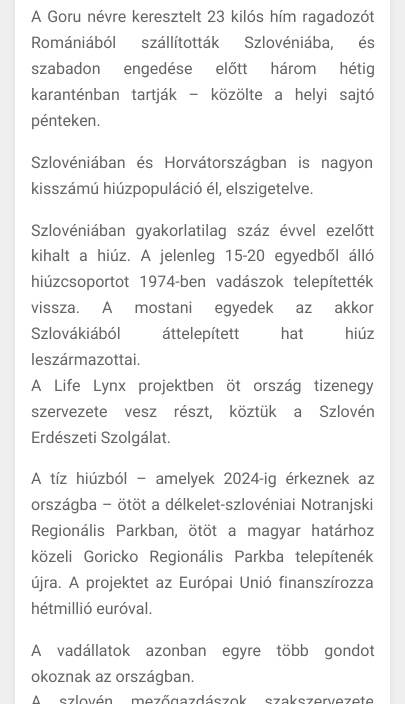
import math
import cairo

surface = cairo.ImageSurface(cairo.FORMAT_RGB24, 405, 704)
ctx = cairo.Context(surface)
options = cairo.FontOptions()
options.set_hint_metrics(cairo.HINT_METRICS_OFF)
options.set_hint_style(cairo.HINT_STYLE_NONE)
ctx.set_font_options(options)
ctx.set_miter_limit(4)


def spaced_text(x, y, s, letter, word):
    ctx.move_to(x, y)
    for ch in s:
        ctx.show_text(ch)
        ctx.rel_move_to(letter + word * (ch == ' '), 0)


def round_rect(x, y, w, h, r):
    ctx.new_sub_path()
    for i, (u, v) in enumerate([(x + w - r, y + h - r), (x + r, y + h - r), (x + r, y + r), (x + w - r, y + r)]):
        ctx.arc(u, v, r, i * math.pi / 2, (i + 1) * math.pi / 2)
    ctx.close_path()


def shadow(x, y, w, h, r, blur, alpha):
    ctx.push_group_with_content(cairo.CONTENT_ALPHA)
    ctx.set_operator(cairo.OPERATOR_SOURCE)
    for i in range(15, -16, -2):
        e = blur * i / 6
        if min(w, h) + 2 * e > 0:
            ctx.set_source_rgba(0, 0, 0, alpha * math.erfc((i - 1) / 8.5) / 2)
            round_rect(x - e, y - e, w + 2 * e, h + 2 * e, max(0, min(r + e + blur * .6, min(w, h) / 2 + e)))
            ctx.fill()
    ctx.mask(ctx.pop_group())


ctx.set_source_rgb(0.937, 0.937, 0.937)
ctx.paint()
ctx.set_source_rgb(0.078, 0.078, 0.078)
shadow(15, -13, 375, 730, 4, 3, 0.1)
ctx.set_source_rgb(1, 1, 1)
ctx.rectangle(15, 0, 375, 704)
ctx.fill()
ctx.select_font_face("Roboto")
ctx.set_font_size(16)
ctx.set_source_rgb(0.392, 0.392, 0.392)
spaced_text(31, 22, "A Goru névre keresztelt 23 kilós hím ragadozót", 0, 1.75)
spaced_text(31, 48, "Romániából szállították Szlovéniába, és", 0, 21)
spaced_text(31, 74, "szabadon engedése előtt három hétig", 0, 19)
spaced_text(31, 100, "karanténban tartják – közölte a helyi sajtó", 0, 7.75)
ctx.move_to(31, 126)
ctx.show_text("pénteken.")
spaced_text(31, 168, "Szlovéniában és Horvátországban is nagyon", 0, 7)
ctx.move_to(31, 194)
ctx.show_text("kisszámú hiúzpopuláció él, elszigetelve.")
spaced_text(31, 236, "Szlovéniában gyakorlatilag száz évvel ezelőtt", 0, 6)
spaced_text(31, 261, "kihalt a hiúz. A jelenleg 15-20 egyedből álló", 0, 5.5)
spaced_text(31, 287, "hiúzcsoportot 1974-ben vadászok telepítették", 0, 6)
spaced_text(31, 313, "vissza. A mostani egyedek az akkor", 0, 18)
spaced_text(31, 339, "Szlovákiából áttelepített hat hiúz", 0, 37.5)
ctx.move_to(31, 365)
ctx.show_text("leszármazottai.")
spaced_text(31, 391, "A Life Lynx projektben öt ország tizenegy", 0, 8.5)
spaced_text(31, 417, "szervezete vesz részt, köztük a Szlovén", 0, 13)
ctx.move_to(31, 443)
ctx.show_text("Erdészeti Szolgálat.")
spaced_text(31, 484, "A tíz hiúzból – amelyek 2024-ig érkeznek az", 0, 4.75)
spaced_text(31, 510, "országba – ötöt a délkelet-szlovéniai Notranjski", 0, 1)
spaced_text(31, 536, "Regionális Parkban, ötöt a magyar határhoz", 0, 6.75)
spaced_text(31, 562, "közeli Goricko Regionális Parkba telepítenék", 0, 7)
spaced_text(31, 588, "újra. A projektet az Európai Unió finanszírozza", 0, 2.75)
ctx.move_to(31, 614)
ctx.show_text("hétmillió euróval.")
spaced_text(31, 656, "A vadállatok azonban egyre több gondot", 0, 11.5)
ctx.move_to(31, 682)
ctx.show_text("okoznak az országban.")
spaced_text(31, 707, "A szlovén mezőgazdászok szakszervezete", 0, 13.5)
surface.write_to_png("page.png")
